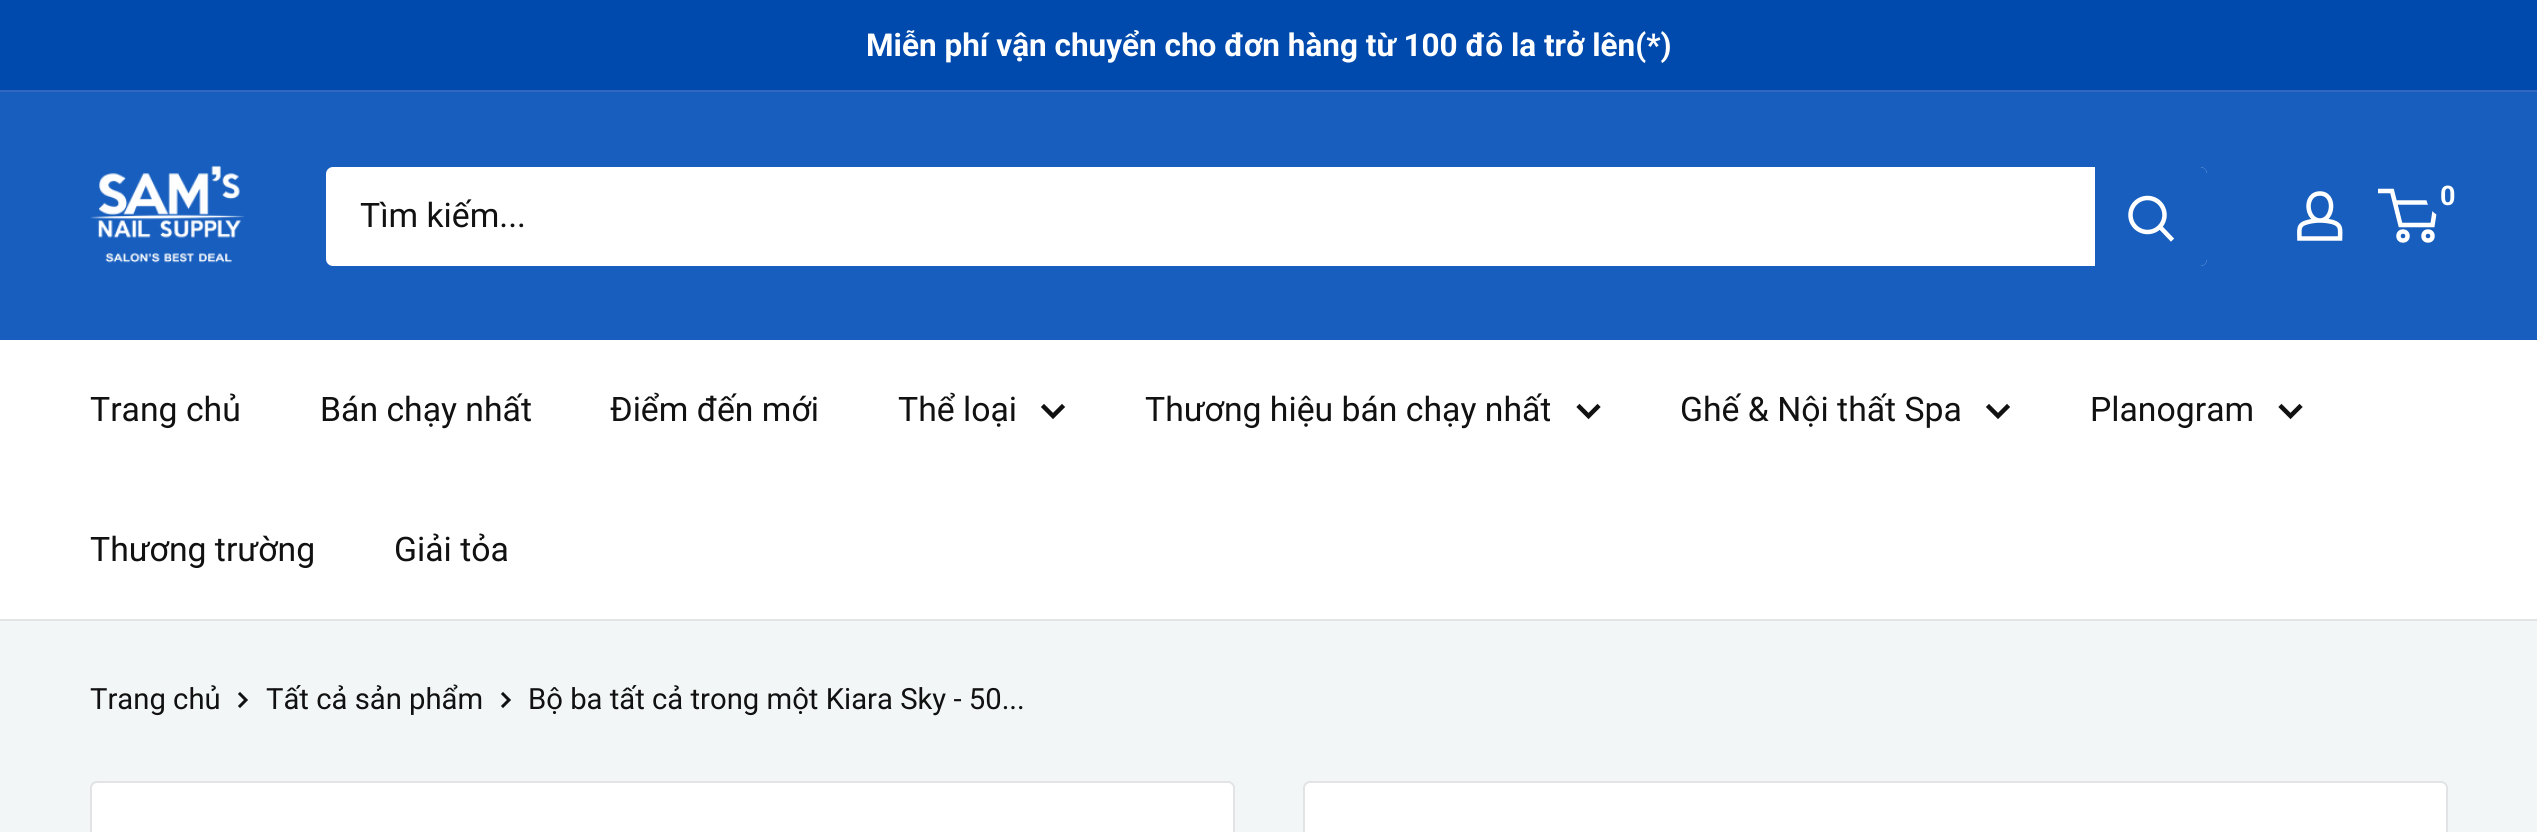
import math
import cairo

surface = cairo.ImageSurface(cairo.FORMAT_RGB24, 2537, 832)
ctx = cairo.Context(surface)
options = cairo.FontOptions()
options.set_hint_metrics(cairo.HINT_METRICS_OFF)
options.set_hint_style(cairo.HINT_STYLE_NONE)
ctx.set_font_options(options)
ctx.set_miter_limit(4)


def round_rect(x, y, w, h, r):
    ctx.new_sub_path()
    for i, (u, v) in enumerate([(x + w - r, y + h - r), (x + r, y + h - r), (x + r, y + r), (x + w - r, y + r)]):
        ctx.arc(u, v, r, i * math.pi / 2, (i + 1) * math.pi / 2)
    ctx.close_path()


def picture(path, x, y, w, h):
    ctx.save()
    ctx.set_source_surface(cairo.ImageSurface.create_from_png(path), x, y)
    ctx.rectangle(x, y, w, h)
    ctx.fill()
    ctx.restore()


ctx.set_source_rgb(0.953, 0.961, 0.965)
ctx.paint()
ctx.set_source_rgb(0, 0.29, 0.678)
ctx.rectangle(0, 0, 2537, 90)
ctx.fill()
ctx.set_source_rgb(0.192, 0.408, 0.757)
ctx.rectangle(0, 90, 2537, 2)
ctx.fill()
ctx.select_font_face("Roboto", cairo.FONT_SLANT_NORMAL, cairo.FONT_WEIGHT_BOLD)
ctx.set_font_size(31.5)
ctx.set_source_rgb(1, 1, 1)
ctx.move_to(866, 56)
ctx.show_text("Miễn phí vận chuyển cho đơn hàng từ 100 đô la trở lên(*)")
ctx.set_source_rgb(0.09, 0.369, 0.745)
ctx.rectangle(0, 92, 2537, 248)
ctx.fill()
picture("img1.png", 90, 165, 155, 98)
ctx.new_path()
ctx.move_to(2320, 220.5)
ctx.curve_to(2324, 220.5, 2328, 221, 2332.5, 222)
ctx.curve_to(2342, 225, 2340, 230, 2340, 238.5)
ctx.line_to(2299.5, 238.5)
ctx.curve_to(2299.5, 229.5, 2297.5, 224.5, 2308, 222)
ctx.curve_to(2312, 221, 2316, 220.5, 2320, 220.5)
ctx.close_path()
ctx.move_to(2320, 220.5)
ctx.curve_to(2306, 220.5, 2303.5, 193.5, 2320, 193.5)
ctx.curve_to(2336, 193.5, 2333.5, 220.5, 2320, 220.5)
ctx.close_path()
ctx.set_source_rgb(1, 1, 1)
ctx.set_line_width(4.5)
ctx.stroke()
ctx.arc(2403, 236, 4.5, 0, 2 * math.pi)
ctx.stroke()
ctx.arc(2428, 236, 4.5, 0, 2 * math.pi)
ctx.stroke()
ctx.new_path()
ctx.move_to(2394.5, 202.5)
ctx.line_to(2436, 202.5)
ctx.line_to(2432.5, 225)
ctx.line_to(2400.5, 225)
ctx.line_to(2392, 191)
ctx.line_to(2378, 191)
ctx.stroke()
ctx.set_source_rgb(0.09, 0.369, 0.745)
ctx.arc(2448.5, 195.5, 22.5, 0, 2 * math.pi)
ctx.fill()
ctx.set_font_size(27)
ctx.set_source_rgb(1, 1, 1)
ctx.move_to(2440, 205)
ctx.show_text("0")
round_rect(326, 167, 1881, 99, 7)
ctx.fill()
ctx.select_font_face("Roboto")
ctx.set_font_size(33.75)
ctx.set_source_rgb(0.067, 0.067, 0.067)
ctx.move_to(360, 227)
ctx.show_text("Tìm kiếm...")
ctx.set_source_rgb(0.09, 0.369, 0.745)
ctx.new_path()
ctx.move_to(2095, 167)
ctx.line_to(2200, 167)
ctx.curve_to(2204, 167, 2207, 170, 2207, 174)
ctx.line_to(2207, 259)
ctx.curve_to(2207, 263, 2204, 266, 2200, 266)
ctx.line_to(2095, 266)
ctx.close_path()
ctx.fill()
ctx.new_path()
ctx.move_to(2171, 238.5)
ctx.line_to(2160, 227)
ctx.set_source_rgb(1, 1, 1)
ctx.set_line_cap(cairo.LINE_CAP_SQUARE)
ctx.stroke()
ctx.arc(2147.5, 215, 17, 0, 2 * math.pi)
ctx.set_line_cap(cairo.LINE_CAP_BUTT)
ctx.stroke()
ctx.rectangle(0, 340, 2537, 279)
ctx.fill()
ctx.set_source_rgb(0.882, 0.89, 0.894)
ctx.rectangle(0, 619, 2537, 2)
ctx.fill()
ctx.set_source_rgb(0.067, 0.067, 0.067)
ctx.move_to(90, 421)
ctx.show_text("Trang chủ")
ctx.move_to(320, 421)
ctx.show_text("Bán chạy nhất")
ctx.move_to(610, 421)
ctx.show_text("Điểm đến mới")
ctx.move_to(898, 421)
ctx.show_text("Thể loại")
ctx.new_path()
ctx.move_to(1062, 407)
ctx.line_to(1053, 416)
ctx.line_to(1044, 407)
ctx.set_line_cap(cairo.LINE_CAP_SQUARE)
ctx.stroke()
ctx.move_to(1145, 421)
ctx.show_text("Thương hiệu bán chạy nhất")
ctx.new_path()
ctx.move_to(1597.5, 407)
ctx.line_to(1588.5, 416)
ctx.line_to(1579.5, 407)
ctx.stroke()
ctx.move_to(1680, 421)
ctx.show_text("Ghế & Nội thất Spa")
ctx.new_path()
ctx.move_to(2007, 407)
ctx.line_to(1998, 416)
ctx.line_to(1989, 407)
ctx.stroke()
ctx.move_to(2090, 421)
ctx.show_text("Planogram")
ctx.new_path()
ctx.move_to(2299.5, 407)
ctx.line_to(2290.5, 416)
ctx.line_to(2281.5, 407)
ctx.stroke()
ctx.move_to(90, 561)
ctx.show_text("Thương trường")
ctx.move_to(394, 561)
ctx.show_text("Giải tỏa")
ctx.set_font_size(29.25)
ctx.move_to(90, 709)
ctx.show_text("Trang chủ")
ctx.new_path()
ctx.move_to(240, 694)
ctx.line_to(246, 700)
ctx.line_to(240, 706)
ctx.set_line_width(3)
ctx.stroke()
ctx.move_to(266, 709)
ctx.show_text("Tất cả sản phẩm")
ctx.new_path()
ctx.move_to(503, 694)
ctx.line_to(509, 700)
ctx.line_to(503, 706)
ctx.stroke()
ctx.move_to(528, 709)
ctx.show_text("Bộ ba tất cả trong một Kiara Sky - 50...")
ctx.set_source_rgb(1, 1, 1)
round_rect(91, 782, 1143, 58, 6)
ctx.fill_preserve()
ctx.set_source_rgb(0.882, 0.89, 0.894)
ctx.set_line_width(2)
ctx.set_line_cap(cairo.LINE_CAP_BUTT)
ctx.stroke()
ctx.set_source_rgb(1, 1, 1)
round_rect(1304, 782, 1143, 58, 6)
ctx.fill_preserve()
ctx.set_source_rgb(0.882, 0.89, 0.894)
ctx.stroke()
surface.write_to_png("page.png")
